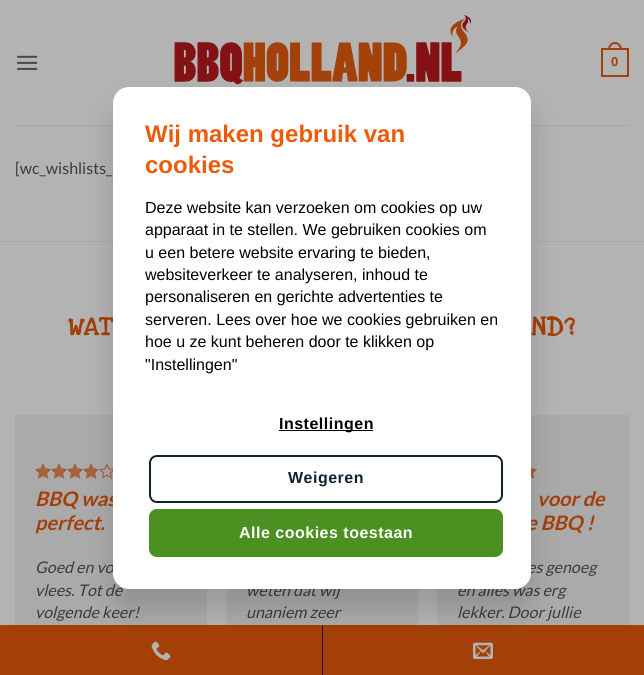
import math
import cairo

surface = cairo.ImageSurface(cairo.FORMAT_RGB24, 644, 675)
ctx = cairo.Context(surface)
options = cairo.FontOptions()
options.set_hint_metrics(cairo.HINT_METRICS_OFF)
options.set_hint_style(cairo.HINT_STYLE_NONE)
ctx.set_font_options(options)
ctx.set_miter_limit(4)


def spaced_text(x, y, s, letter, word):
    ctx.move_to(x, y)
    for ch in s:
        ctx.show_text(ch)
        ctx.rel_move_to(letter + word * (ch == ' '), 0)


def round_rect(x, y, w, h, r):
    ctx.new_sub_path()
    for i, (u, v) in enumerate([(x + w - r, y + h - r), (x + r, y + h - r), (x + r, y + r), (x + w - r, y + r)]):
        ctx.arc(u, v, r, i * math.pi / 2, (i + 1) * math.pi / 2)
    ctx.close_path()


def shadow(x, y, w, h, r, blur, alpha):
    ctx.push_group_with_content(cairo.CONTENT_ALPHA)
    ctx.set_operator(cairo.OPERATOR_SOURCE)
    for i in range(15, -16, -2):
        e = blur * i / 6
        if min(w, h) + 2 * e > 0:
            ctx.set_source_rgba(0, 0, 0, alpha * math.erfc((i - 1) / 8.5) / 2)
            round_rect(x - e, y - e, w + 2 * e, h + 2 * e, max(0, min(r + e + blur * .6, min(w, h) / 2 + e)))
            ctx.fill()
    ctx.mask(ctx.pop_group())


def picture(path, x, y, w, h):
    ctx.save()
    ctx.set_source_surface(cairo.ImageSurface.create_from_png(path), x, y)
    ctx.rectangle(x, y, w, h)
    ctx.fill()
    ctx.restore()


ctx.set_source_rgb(0.702, 0.702, 0.702)
ctx.paint()
picture("img1.png", 17, 55, 21, 15)
picture("img2.png", 174, 15, 297, 70)
ctx.rectangle(602, 49, 26, 27)
ctx.set_source_rgb(0.643, 0.251, 0.031)
ctx.stroke()
ctx.set_fill_rule(cairo.FILL_RULE_EVEN_ODD)
ctx.new_path()
ctx.move_to(615, 42)
ctx.curve_to(619.5, 42, 622, 46, 622, 50)
ctx.line_to(608, 50)
ctx.curve_to(608, 46, 610.5, 42, 615, 42)
ctx.close_path()
ctx.move_to(615, 44)
ctx.curve_to(618.5, 44, 620, 47, 620, 50)
ctx.line_to(610, 50)
ctx.curve_to(610, 47, 611.5, 44, 615, 44)
ctx.close_path()
ctx.fill()
ctx.select_font_face("Liberation Sans", cairo.FONT_SLANT_NORMAL, cairo.FONT_WEIGHT_BOLD)
ctx.set_font_size(13)
ctx.move_to(611, 66)
ctx.show_text("0")
ctx.set_source_rgb(0.655, 0.655, 0.655)
ctx.rectangle(15, 125, 614, 1)
ctx.fill()
ctx.select_font_face("Lato")
ctx.set_font_size(16)
ctx.set_source_rgb(0.231, 0.231, 0.231)
ctx.move_to(15, 174)
ctx.show_text("[wc_wishlists_")
ctx.set_source_rgb(0.663, 0.663, 0.663)
ctx.rectangle(0, 241, 644, 1)
ctx.fill()
ctx.select_font_face("Love Ya Like A Sister", cairo.FONT_SLANT_NORMAL, cairo.FONT_WEIGHT_BOLD)
ctx.set_font_size(26)
ctx.set_source_rgb(0.643, 0.251, 0.031)
spaced_text(68, 335, "WAT", 1, 0)
spaced_text(531, 335, "ND?", 1, 0)
ctx.set_source_rgb(0.667, 0.667, 0.667)
ctx.rectangle(15, 415, 192, 210)
ctx.fill()
picture("img3.png", 35, 463, 78, 16)
picture("img4.png", 35, 463, 61, 16)
ctx.select_font_face("Lato", cairo.FONT_SLANT_ITALIC, cairo.FONT_WEIGHT_BOLD)
ctx.set_font_size(20)
ctx.set_source_rgb(0.643, 0.251, 0.031)
ctx.move_to(35, 506)
ctx.show_text("BBQ was")
ctx.move_to(35, 530)
ctx.show_text("perfect.")
ctx.select_font_face("Lato", cairo.FONT_SLANT_ITALIC)
ctx.set_font_size(16)
ctx.set_source_rgb(0.231, 0.231, 0.231)
ctx.move_to(35, 573)
ctx.show_text("Goed en vo")
ctx.move_to(35, 596)
ctx.show_text("vlees. Tot de")
ctx.move_to(35, 618)
ctx.show_text("volgende keer!")
ctx.set_source_rgb(0.667, 0.667, 0.667)
ctx.rectangle(226, 589, 192, 36)
ctx.fill()
ctx.set_source_rgb(0.231, 0.231, 0.231)
ctx.move_to(246, 596)
ctx.show_text("weten dat wij")
ctx.move_to(246, 618)
ctx.show_text("unaniem zeer")
ctx.set_source_rgb(0.667, 0.667, 0.667)
ctx.rectangle(437, 415, 192, 210)
ctx.fill()
picture("img5.png", 531, 467, 6, 12)
picture("img6.png", 531, 467, 6, 12)
ctx.select_font_face("Lato", cairo.FONT_SLANT_ITALIC, cairo.FONT_WEIGHT_BOLD)
ctx.set_font_size(20)
ctx.set_source_rgb(0.643, 0.251, 0.031)
ctx.move_to(537, 506)
ctx.show_text("voor de")
ctx.move_to(526, 530)
ctx.show_text("e BBQ !")
ctx.select_font_face("Lato", cairo.FONT_SLANT_ITALIC)
ctx.set_font_size(16)
ctx.set_source_rgb(0.231, 0.231, 0.231)
ctx.move_to(527, 573)
ctx.show_text("es genoeg")
ctx.move_to(457, 596)
ctx.show_text("en alles was erg")
ctx.move_to(457, 618)
ctx.show_text("lekker. Door jullie")
ctx.set_source_rgb(0.643, 0.251, 0.031)
ctx.rectangle(0, 625, 322, 50)
ctx.fill()
ctx.set_source_rgb(0.082, 0.082, 0.082)
ctx.rectangle(322, 625, 1, 50)
ctx.fill()
picture("img7.png", 151, 641, 20, 20)
ctx.set_source_rgb(0.643, 0.251, 0.031)
ctx.rectangle(323, 625, 321, 50)
ctx.fill()
picture("img8.png", 473, 642, 20, 17)
ctx.set_source_rgb(0, 0, 0)
shadow(113, 107, 418, 502, 16, 15, 0.15)
ctx.set_source_rgb(1, 1, 1)
round_rect(113, 87, 418, 502, 16)
ctx.fill()
ctx.select_font_face("Liberation Sans", cairo.FONT_SLANT_NORMAL, cairo.FONT_WEIGHT_BOLD)
ctx.set_font_size(24)
ctx.set_source_rgb(0.918, 0.357, 0.043)
ctx.move_to(145, 142)
ctx.show_text("Wij maken gebruik van")
ctx.move_to(145, 173)
ctx.show_text("cookies")
ctx.select_font_face("Liberation Sans")
ctx.set_font_size(16)
ctx.set_source_rgb(0, 0, 0)
ctx.move_to(145, 213)
ctx.show_text("Deze website kan verzoeken om cookies op uw")
ctx.move_to(145, 235)
ctx.show_text("apparaat in te stellen. We gebruiken cookies om")
ctx.move_to(145, 258)
ctx.show_text("u een betere website ervaring te bieden,")
ctx.move_to(145, 280)
ctx.show_text("websiteverkeer te analyseren, inhoud te")
ctx.move_to(145, 302)
ctx.show_text("personaliseren en gerichte advertenties te")
ctx.move_to(145, 325)
ctx.show_text("serveren. Lees over hoe we cookies gebruiken en")
ctx.move_to(145, 347)
ctx.show_text("hoe u ze kunt beheren door te klikken op")
ctx.move_to(145, 370)
ctx.show_text("\"Instellingen\"")
ctx.rectangle(279, 430, 94, 1)
ctx.fill()
ctx.select_font_face("Liberation Sans", cairo.FONT_SLANT_NORMAL, cairo.FONT_WEIGHT_BOLD)
spaced_text(279, 429, "Instellingen", 0.5, 0)
round_rect(150, 456, 352, 46, 7)
ctx.set_source_rgb(0.059, 0.137, 0.18)
ctx.stroke()
spaced_text(288, 483, "Weigeren", 0.5, 0)
ctx.set_source_rgb(0.294, 0.565, 0.129)
round_rect(150, 510, 352, 46, 7)
ctx.fill_preserve()
ctx.stroke()
ctx.set_source_rgb(1, 1, 1)
spaced_text(239, 538, "Alle cookies toestaan", 0.5, 0)
surface.write_to_png("page.png")
